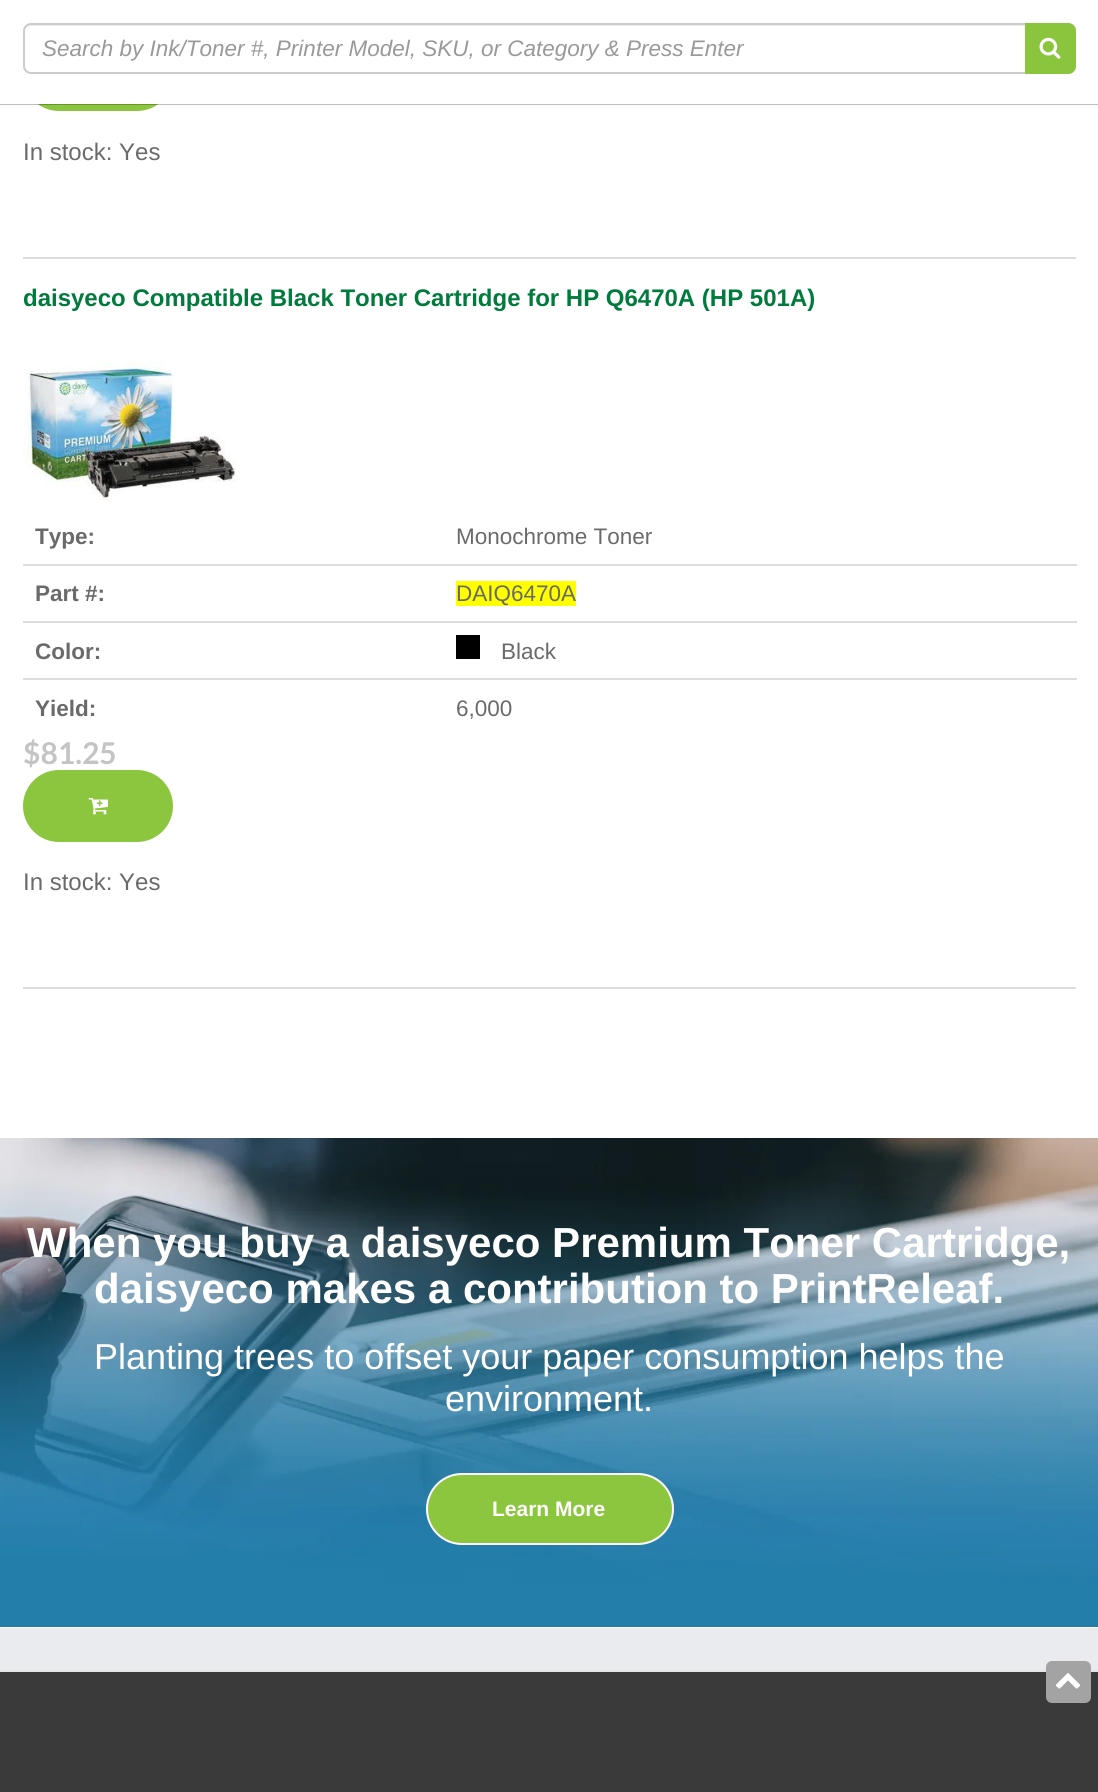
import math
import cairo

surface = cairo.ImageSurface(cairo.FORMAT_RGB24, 1098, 1792)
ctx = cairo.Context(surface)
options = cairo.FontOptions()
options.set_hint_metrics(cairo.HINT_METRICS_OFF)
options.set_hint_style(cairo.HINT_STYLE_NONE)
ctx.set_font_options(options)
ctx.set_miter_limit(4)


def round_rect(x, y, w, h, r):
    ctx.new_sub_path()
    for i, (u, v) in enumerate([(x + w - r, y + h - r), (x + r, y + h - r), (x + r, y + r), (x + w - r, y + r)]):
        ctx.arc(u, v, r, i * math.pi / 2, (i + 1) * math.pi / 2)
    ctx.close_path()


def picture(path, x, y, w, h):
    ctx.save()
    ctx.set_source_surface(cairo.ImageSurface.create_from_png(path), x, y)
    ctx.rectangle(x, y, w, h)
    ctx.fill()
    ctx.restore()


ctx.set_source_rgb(1, 1, 1)
ctx.paint()
ctx.set_source_rgb(0.549, 0.773, 0.243)
round_rect(23, 39, 150, 72, 36)
ctx.fill()
ctx.set_source_rgba(0, 0, 0, 0.25)
ctx.rectangle(0, 104, 1098, 1)
ctx.fill()
ctx.set_source_rgb(1, 1, 1)
ctx.rectangle(23, 39, 150, 65)
ctx.fill()
ctx.set_source_rgb(0.925, 0.925, 0.925)
ctx.new_path()
ctx.move_to(30, 26)
ctx.line_to(1068, 26)
ctx.curve_to(1071, 26, 1074, 28, 1074, 32)
ctx.line_to(1074, 30)
ctx.curve_to(1074, 27, 1071, 24, 1068, 24)
ctx.line_to(30, 24)
ctx.curve_to(27, 24, 24, 27, 24, 30)
ctx.line_to(24, 32)
ctx.curve_to(24, 28, 27, 26, 30, 26)
ctx.close_path()
ctx.fill()
round_rect(24, 24, 1051, 49, 7)
ctx.set_source_rgb(0.8, 0.8, 0.8)
ctx.stroke()
ctx.select_font_face("Liberation Sans", cairo.FONT_SLANT_ITALIC)
ctx.set_font_size(22.5)
ctx.set_source_rgb(0.6, 0.6, 0.6)
ctx.move_to(42, 56)
ctx.show_text("Search by Ink/Toner #, Printer Model, SKU, or Category & Press Enter")
ctx.set_source_rgb(0.545, 0.773, 0.243)
ctx.new_path()
ctx.move_to(1025, 23)
ctx.line_to(1068, 23)
ctx.curve_to(1072.5, 23, 1076, 26.5, 1076, 31)
ctx.line_to(1076, 66)
ctx.curve_to(1076, 70.5, 1072.5, 74, 1068, 74)
ctx.line_to(1025, 74)
ctx.close_path()
ctx.fill()
picture("img1.png", 1039, 37, 22, 22)
ctx.select_font_face("Liberation Sans")
ctx.set_font_size(24)
ctx.set_source_rgb(0.416, 0.416, 0.416)
ctx.move_to(23, 160)
ctx.show_text("In stock: Yes")
ctx.set_source_rgb(0.867, 0.867, 0.867)
ctx.rectangle(23, 257, 1053, 2)
ctx.fill()
ctx.select_font_face("Liberation Sans", cairo.FONT_SLANT_NORMAL, cairo.FONT_WEIGHT_BOLD)
ctx.set_source_rgb(0, 0.478, 0.239)
ctx.move_to(23, 306)
ctx.show_text("daisyeco Compatible Black Toner Cartridge for HP Q6470A (HP 501A)")
picture("img2.png", 23, 361, 214, 139)
ctx.set_font_size(22.5)
ctx.set_source_rgb(0.416, 0.416, 0.416)
ctx.move_to(35, 544)
ctx.show_text("Type:")
ctx.select_font_face("Liberation Sans")
ctx.move_to(456, 544)
ctx.show_text("Monochrome Toner")
ctx.select_font_face("Liberation Sans", cairo.FONT_SLANT_NORMAL, cairo.FONT_WEIGHT_BOLD)
ctx.move_to(35, 601)
ctx.show_text("Part #:")
ctx.set_source_rgb(0.867, 0.867, 0.867)
ctx.rectangle(23, 564, 1054, 2)
ctx.fill()
ctx.set_source_rgb(1, 1, 0)
ctx.rectangle(456, 581, 120, 25)
ctx.fill()
ctx.select_font_face("Liberation Sans")
ctx.set_source_rgb(0.416, 0.416, 0.416)
ctx.move_to(456, 601)
ctx.show_text("DAIQ6470A")
ctx.select_font_face("Liberation Sans", cairo.FONT_SLANT_NORMAL, cairo.FONT_WEIGHT_BOLD)
ctx.move_to(35, 659)
ctx.show_text("Color:")
ctx.set_source_rgb(0.867, 0.867, 0.867)
ctx.rectangle(23, 621, 1054, 2)
ctx.fill()
ctx.set_source_rgb(0, 0, 0)
ctx.rectangle(456, 635, 24, 24)
ctx.fill()
ctx.select_font_face("Liberation Sans")
ctx.set_source_rgb(0.416, 0.416, 0.416)
ctx.move_to(501, 659)
ctx.show_text("Black")
ctx.select_font_face("Liberation Sans", cairo.FONT_SLANT_NORMAL, cairo.FONT_WEIGHT_BOLD)
ctx.move_to(35, 716)
ctx.show_text("Yield:")
ctx.set_source_rgb(0.867, 0.867, 0.867)
ctx.rectangle(23, 678, 1054, 2)
ctx.fill()
ctx.select_font_face("Liberation Sans")
ctx.set_source_rgb(0.416, 0.416, 0.416)
ctx.move_to(456, 716)
ctx.show_text("6,000")
ctx.select_font_face("Lato", cairo.FONT_SLANT_NORMAL, cairo.FONT_WEIGHT_BOLD)
ctx.set_font_size(30)
ctx.set_source_rgb(0.769, 0.769, 0.769)
ctx.move_to(23, 764)
ctx.show_text("$81.25")
ctx.set_source_rgb(0.549, 0.773, 0.243)
round_rect(23, 770, 150, 72, 36)
ctx.fill()
picture("img3.png", 88, 798, 20, 17)
ctx.select_font_face("Liberation Sans")
ctx.set_font_size(24)
ctx.set_source_rgb(0.416, 0.416, 0.416)
ctx.move_to(23, 890)
ctx.show_text("In stock: Yes")
ctx.set_source_rgb(0.867, 0.867, 0.867)
ctx.rectangle(23, 987, 1053, 2)
ctx.fill()
picture("img4.png", 0, 1138, 1098, 489)
ctx.select_font_face("Liberation Sans", cairo.FONT_SLANT_NORMAL, cairo.FONT_WEIGHT_BOLD)
ctx.set_font_size(42)
ctx.set_source_rgb(1, 1, 1)
ctx.move_to(27, 1257)
ctx.show_text("When you buy a daisyeco Premium Toner Cartridge,")
ctx.move_to(94, 1303)
ctx.show_text("daisyeco makes a contribution to PrintReleaf.")
ctx.select_font_face("Liberation Sans")
ctx.set_font_size(36)
ctx.move_to(94, 1369)
ctx.show_text("Planting trees to offset your paper consumption helps the")
ctx.move_to(445, 1411)
ctx.show_text("environment.")
ctx.set_source_rgb(0.549, 0.773, 0.243)
round_rect(427, 1474, 246, 70, 35)
ctx.fill_preserve()
ctx.set_source_rgb(1, 1, 1)
ctx.stroke()
ctx.select_font_face("Liberation Sans", cairo.FONT_SLANT_NORMAL, cairo.FONT_WEIGHT_BOLD)
ctx.set_font_size(21)
ctx.move_to(492, 1516)
ctx.show_text("Learn More")
ctx.set_source_rgb(0.914, 0.918, 0.933)
ctx.rectangle(0, 1628, 1098, 42)
ctx.fill()
ctx.set_source_rgb(0.227, 0.227, 0.227)
ctx.rectangle(0, 1672, 1098, 120)
ctx.fill()
ctx.set_source_rgb(0.898, 0.898, 0.898)
ctx.rectangle(0, 1670, 1098, 2)
ctx.fill()
ctx.set_source_rgb(0.639, 0.639, 0.639)
round_rect(1046, 1661, 45, 42, 6)
ctx.fill()
picture("img5.png", 1055, 1673, 26, 16)
surface.write_to_png("page.png")
